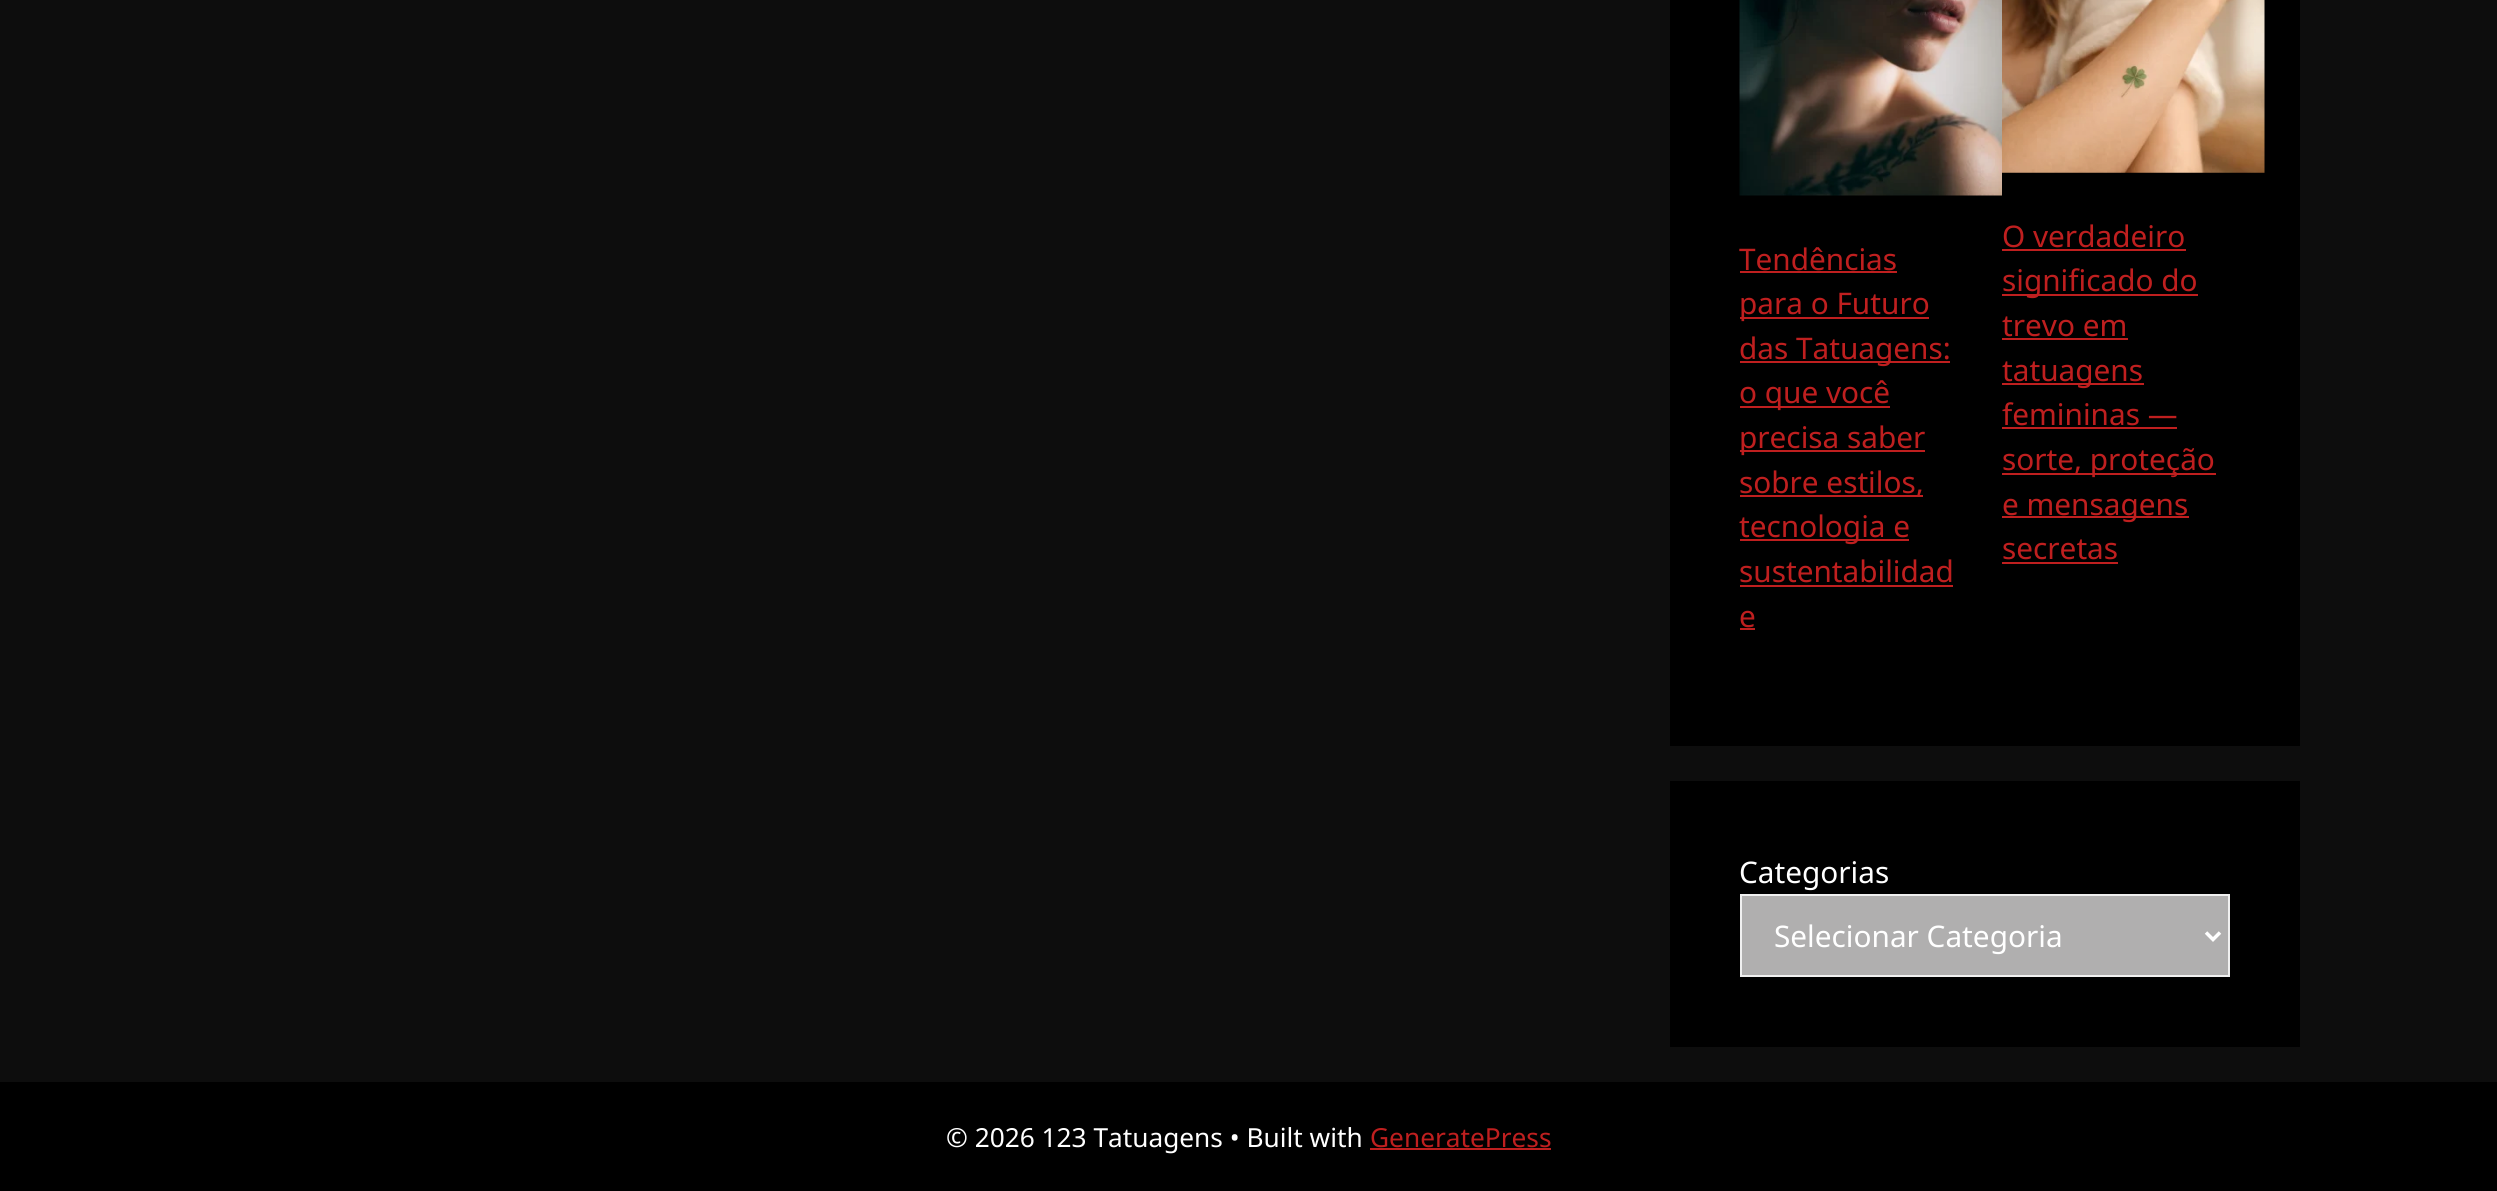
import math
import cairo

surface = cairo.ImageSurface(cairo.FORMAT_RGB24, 2497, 1191)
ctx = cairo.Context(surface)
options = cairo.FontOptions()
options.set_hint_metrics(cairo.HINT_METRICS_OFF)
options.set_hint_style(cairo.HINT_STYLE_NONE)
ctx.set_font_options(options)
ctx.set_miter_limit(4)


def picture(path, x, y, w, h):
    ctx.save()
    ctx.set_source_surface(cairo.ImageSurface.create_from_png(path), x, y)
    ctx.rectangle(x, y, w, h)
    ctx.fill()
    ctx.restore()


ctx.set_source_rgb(0.051, 0.051, 0.051)
ctx.paint()
ctx.set_source_rgb(0, 0, 0)
ctx.rectangle(1670, 0, 630, 746)
ctx.fill()
picture("img1.png", 1739, 0, 263, 196)
ctx.select_font_face("Noto Sans")
ctx.set_font_size(29.75)
ctx.set_source_rgb(0.749, 0.122, 0.122)
ctx.move_to(1739, 270)
ctx.show_text("Tendências")
ctx.rectangle(1740, 271, 157, 2)
ctx.fill()
ctx.rectangle(1740, 317, 189, 2)
ctx.fill()
ctx.move_to(1739, 314)
ctx.show_text("para o Futuro")
ctx.rectangle(1740, 361, 210, 2)
ctx.fill()
ctx.move_to(1739, 359)
ctx.show_text("das Tatuagens:")
ctx.rectangle(1740, 406, 150, 2)
ctx.fill()
ctx.move_to(1739, 403)
ctx.show_text("o que você")
ctx.rectangle(1740, 450, 185, 2)
ctx.fill()
ctx.move_to(1739, 448)
ctx.show_text("precisa saber")
ctx.rectangle(1740, 495, 183, 2)
ctx.fill()
ctx.move_to(1739, 493)
ctx.show_text("sobre estilos,")
ctx.rectangle(1740, 539, 169, 2)
ctx.fill()
ctx.move_to(1739, 537)
ctx.show_text("tecnologia e")
ctx.move_to(1739, 582)
ctx.show_text("sustentabilidad")
ctx.rectangle(1740, 585, 213, 2)
ctx.fill()
ctx.move_to(1739, 627)
ctx.show_text("e")
ctx.rectangle(1740, 628, 15, 2)
ctx.fill()
picture("img2.png", 2002, 0, 263, 173)
ctx.move_to(2002, 247)
ctx.show_text("O verdadeiro")
ctx.rectangle(2002, 249, 184, 2)
ctx.fill()
ctx.rectangle(2002, 294, 196, 2)
ctx.fill()
ctx.move_to(2002, 291)
ctx.show_text("significado do")
ctx.move_to(2002, 336)
ctx.show_text("trevo em")
ctx.rectangle(2002, 338, 126, 2)
ctx.fill()
ctx.rectangle(2002, 383, 142, 2)
ctx.fill()
ctx.move_to(2002, 381)
ctx.show_text("tatuagens")
ctx.move_to(2002, 425)
ctx.show_text("femininas —")
ctx.rectangle(2002, 427, 175, 2)
ctx.fill()
ctx.rectangle(2002, 473, 214, 2)
ctx.fill()
ctx.move_to(2002, 470)
ctx.show_text("sorte, proteção")
ctx.rectangle(2002, 516, 187, 2)
ctx.fill()
ctx.move_to(2002, 515)
ctx.show_text("e mensagens")
ctx.move_to(2002, 559)
ctx.show_text("secretas")
ctx.rectangle(2002, 562, 116, 2)
ctx.fill()
ctx.set_source_rgb(0, 0, 0)
ctx.rectangle(1670, 781, 630, 266)
ctx.fill()
ctx.set_source_rgb(1, 1, 1)
ctx.move_to(1739, 883)
ctx.show_text("Categorias")
ctx.set_source_rgb(0.69, 0.686, 0.686)
ctx.rectangle(1741, 895, 488, 81)
ctx.fill_preserve()
ctx.set_source_rgb(0.941, 0.941, 0.941)
ctx.stroke()
ctx.new_path()
ctx.move_to(2206, 932.5)
ctx.line_to(2213, 939.5)
ctx.line_to(2220, 932.5)
ctx.set_source_rgb(1, 1, 1)
ctx.set_line_width(3.5)
ctx.stroke()
ctx.move_to(1774, 947)
ctx.show_text("Selecionar Categoria")
ctx.set_source_rgb(0, 0, 0)
ctx.rectangle(0, 1082, 2497, 109)
ctx.fill()
ctx.set_font_size(26.25)
ctx.set_source_rgb(1, 1, 1)
ctx.move_to(946, 1147)
ctx.show_text("© 2026 123 Tatuagens • Built with")
ctx.set_source_rgb(0.749, 0.122, 0.122)
ctx.move_to(1370, 1147)
ctx.show_text("GeneratePress")
ctx.rectangle(1370, 1148, 181, 2)
ctx.fill()
surface.write_to_png("page.png")
